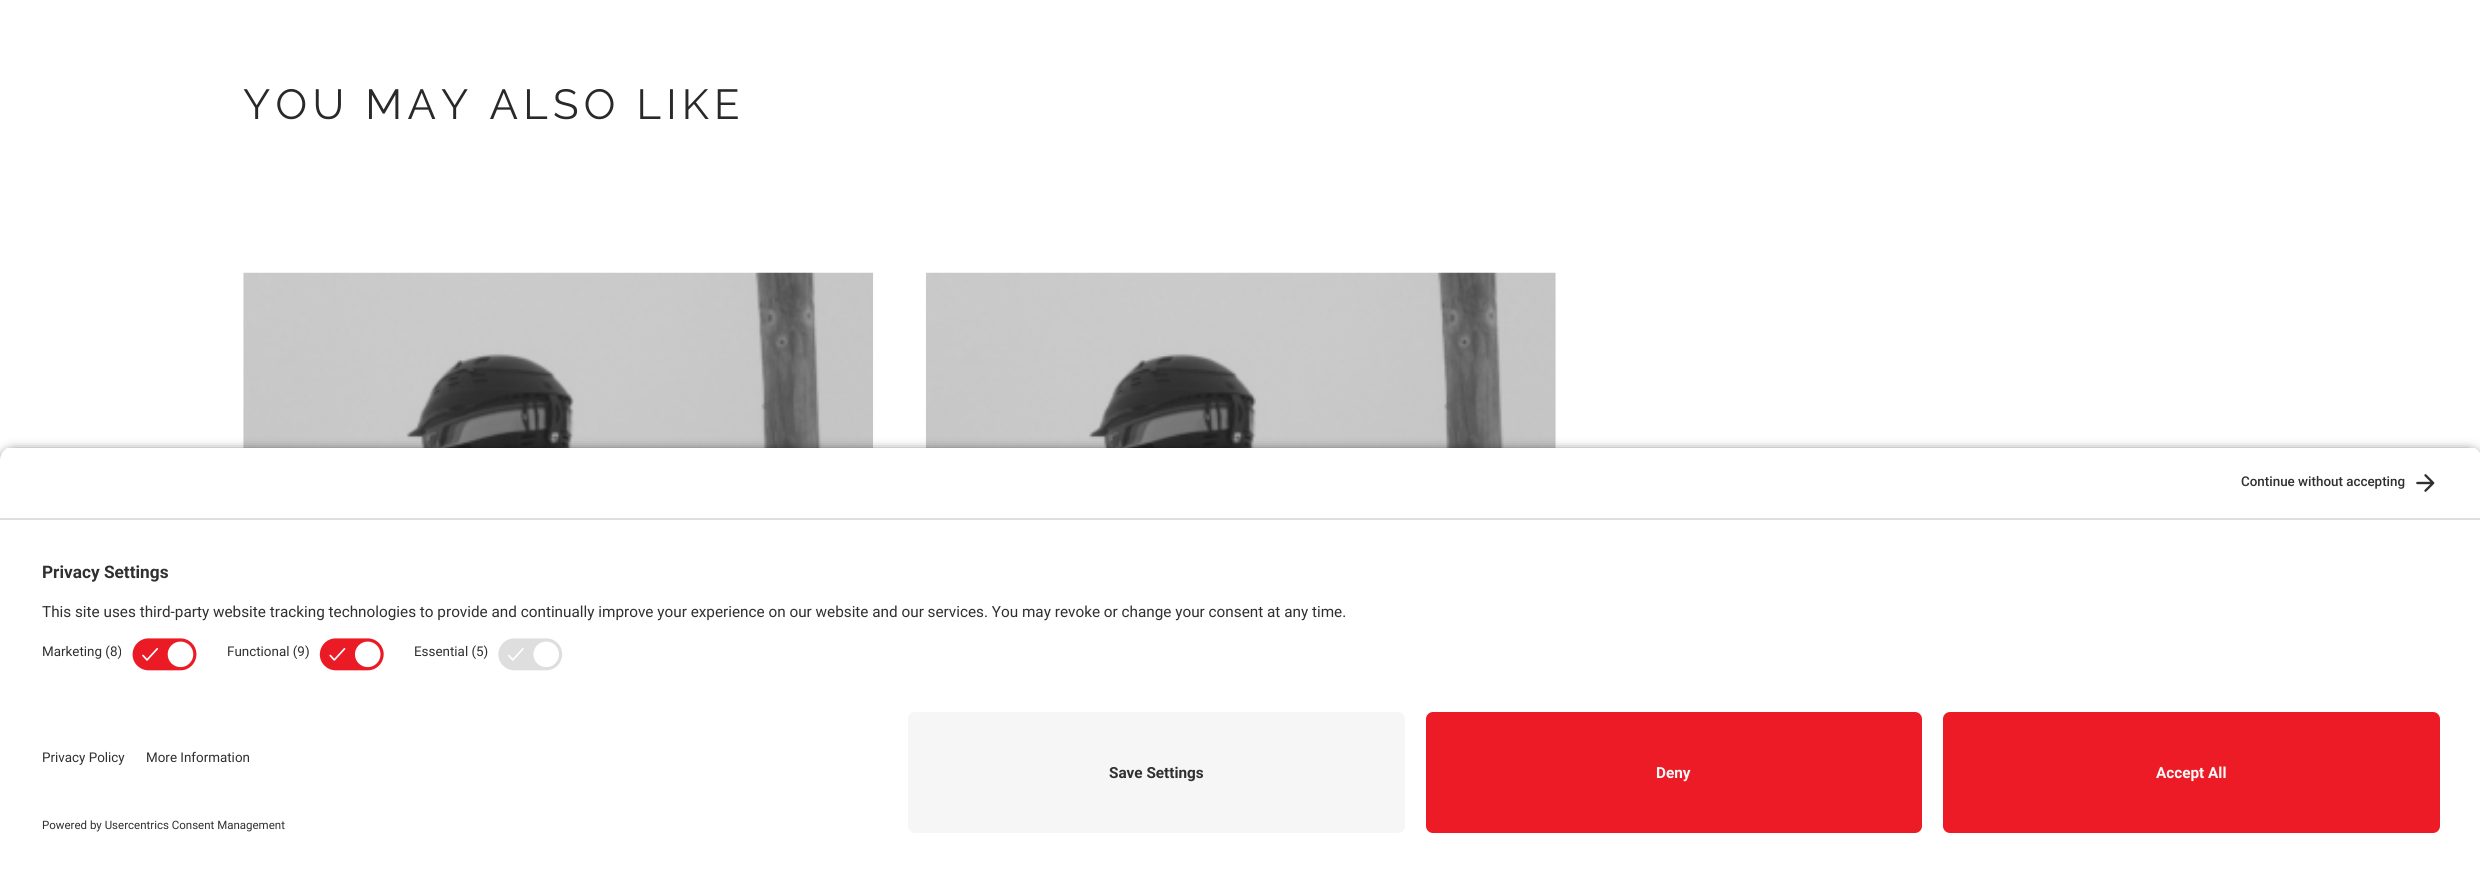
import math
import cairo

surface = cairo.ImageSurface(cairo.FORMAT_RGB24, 2480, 875)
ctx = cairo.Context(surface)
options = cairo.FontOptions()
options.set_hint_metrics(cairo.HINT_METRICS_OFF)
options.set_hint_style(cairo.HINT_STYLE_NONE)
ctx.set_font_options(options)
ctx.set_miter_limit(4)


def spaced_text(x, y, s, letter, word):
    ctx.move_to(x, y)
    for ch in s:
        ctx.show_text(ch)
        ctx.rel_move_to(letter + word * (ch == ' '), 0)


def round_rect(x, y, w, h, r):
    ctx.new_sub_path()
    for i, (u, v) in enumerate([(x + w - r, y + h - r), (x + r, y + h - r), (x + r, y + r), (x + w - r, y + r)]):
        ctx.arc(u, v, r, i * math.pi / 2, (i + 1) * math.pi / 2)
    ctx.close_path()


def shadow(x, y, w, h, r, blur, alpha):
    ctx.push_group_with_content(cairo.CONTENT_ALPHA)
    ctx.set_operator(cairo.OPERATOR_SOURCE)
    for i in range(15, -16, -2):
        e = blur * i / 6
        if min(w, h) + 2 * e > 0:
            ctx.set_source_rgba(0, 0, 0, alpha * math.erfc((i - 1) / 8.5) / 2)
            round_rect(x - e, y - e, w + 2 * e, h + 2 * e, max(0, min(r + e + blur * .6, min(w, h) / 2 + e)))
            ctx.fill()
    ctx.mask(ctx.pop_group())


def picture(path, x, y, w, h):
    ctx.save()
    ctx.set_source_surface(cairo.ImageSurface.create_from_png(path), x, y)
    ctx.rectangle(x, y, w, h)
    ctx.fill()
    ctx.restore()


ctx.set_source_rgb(1, 1, 1)
ctx.paint()
ctx.select_font_face("Raleway")
ctx.set_font_size(42)
ctx.set_source_rgb(0.161, 0.161, 0.161)
spaced_text(243, 119, "YOU MAY ALSO LIKE", 5.25, 0)
picture("img1.png", 243, 272, 631, 176)
picture("img2.png", 925, 272, 631, 176)
ctx.set_source_rgb(0, 0, 0)
shadow(0, 452, 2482, 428, 14, 6, 0.8)
ctx.save()
ctx.new_path()
ctx.move_to(14, 446)
ctx.line_to(2468, 446)
ctx.curve_to(2475.5, 446, 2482, 452.5, 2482, 460)
ctx.line_to(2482, 698)
ctx.line_to(0, 698)
ctx.line_to(0, 460)
ctx.curve_to(0, 452.5, 6.5, 446, 14, 446)
ctx.close_path()
ctx.clip()
ctx.set_source_rgb(1, 1, 1)
ctx.rectangle(0, 448, 2480, 70)
ctx.fill()
ctx.restore()
ctx.set_source_rgb(0.871, 0.871, 0.871)
ctx.rectangle(0, 518, 2480, 2)
ctx.fill()
ctx.select_font_face("Roboto Medium")
ctx.set_font_size(13.4)
ctx.set_source_rgb(0.188, 0.188, 0.188)
ctx.move_to(2241, 486)
ctx.show_text("Continue without accepting")
picture("img3.png", 2416, 474, 19, 18)
ctx.set_source_rgb(1, 1, 1)
ctx.rectangle(0, 520, 2480, 355)
ctx.fill()
ctx.select_font_face("Roboto", cairo.FONT_SLANT_NORMAL, cairo.FONT_WEIGHT_BOLD)
ctx.set_font_size(17.25)
ctx.set_source_rgb(0.188, 0.188, 0.188)
ctx.move_to(42, 578)
ctx.show_text("Privacy Settings")
ctx.select_font_face("Roboto")
ctx.set_font_size(15.3)
ctx.move_to(42, 617)
ctx.show_text("This site uses third-party website tracking technologies to provide and continually improve your experience on our website and our services. You may revoke or change your consent at any time.")
ctx.set_font_size(13.4)
ctx.move_to(42, 656)
ctx.show_text("Marketing (8)")
picture("img4.png", 132, 638, 65, 33)
ctx.move_to(227, 656)
ctx.show_text("Functional (9)")
picture("img5.png", 319, 638, 65, 33)
ctx.move_to(414, 656)
ctx.show_text("Essential (5)")
picture("img6.png", 498, 638, 65, 33)
ctx.move_to(42, 762)
ctx.show_text("Privacy Policy")
ctx.move_to(146, 762)
ctx.show_text("More Information")
ctx.set_font_size(11.5)
ctx.move_to(42, 829)
ctx.show_text("Powered by Usercentrics Consent Management")
ctx.set_source_rgb(0.961, 0.961, 0.961)
round_rect(908, 712, 497, 121, 7)
ctx.fill()
ctx.select_font_face("Roboto", cairo.FONT_SLANT_NORMAL, cairo.FONT_WEIGHT_BOLD)
ctx.set_font_size(15.3)
ctx.set_source_rgb(0.188, 0.188, 0.188)
ctx.move_to(1109, 778)
ctx.show_text("Save Settings")
ctx.set_source_rgb(0.922, 0.106, 0.145)
round_rect(1426, 712, 496, 121, 7)
ctx.fill()
ctx.set_source_rgb(0.98, 0.98, 0.98)
ctx.move_to(1656, 778)
ctx.show_text("Deny")
ctx.set_source_rgb(0.922, 0.106, 0.145)
round_rect(1943, 712, 497, 121, 7)
ctx.fill()
ctx.set_source_rgb(0.98, 0.98, 0.98)
ctx.move_to(2156, 778)
ctx.show_text("Accept All")
surface.write_to_png("page.png")
